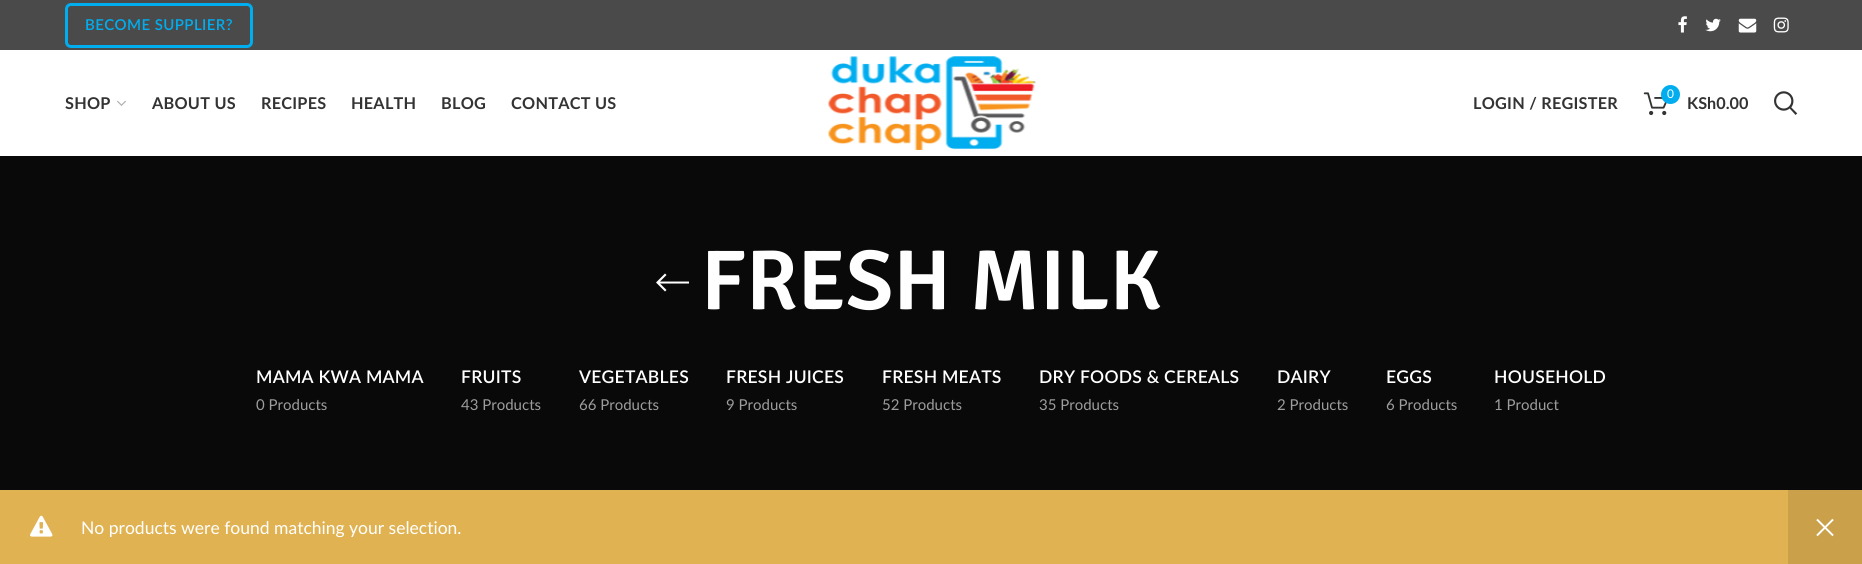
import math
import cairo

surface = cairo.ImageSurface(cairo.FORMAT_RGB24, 1862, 564)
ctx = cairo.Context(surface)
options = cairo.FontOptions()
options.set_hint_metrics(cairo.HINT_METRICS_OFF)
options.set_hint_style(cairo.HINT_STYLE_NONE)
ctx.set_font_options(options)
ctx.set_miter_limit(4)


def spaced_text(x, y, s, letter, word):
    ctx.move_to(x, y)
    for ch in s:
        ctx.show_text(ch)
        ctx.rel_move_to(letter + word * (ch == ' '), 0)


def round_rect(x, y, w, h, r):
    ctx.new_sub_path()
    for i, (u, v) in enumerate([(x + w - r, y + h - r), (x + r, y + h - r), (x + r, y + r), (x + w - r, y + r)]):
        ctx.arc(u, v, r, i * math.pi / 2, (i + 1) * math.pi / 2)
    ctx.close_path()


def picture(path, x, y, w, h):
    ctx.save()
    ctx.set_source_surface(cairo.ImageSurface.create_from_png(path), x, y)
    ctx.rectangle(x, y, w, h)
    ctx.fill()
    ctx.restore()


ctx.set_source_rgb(1, 1, 1)
ctx.paint()
ctx.set_source_rgb(0.29, 0.29, 0.29)
ctx.rectangle(0, 0, 1862, 50)
ctx.fill()
round_rect(66.5, 4.5, 185, 42, 4.5)
ctx.set_source_rgb(0, 0.678, 0.937)
ctx.set_line_width(3)
ctx.stroke()
ctx.select_font_face("Lato SemiBold")
ctx.set_font_size(15)
spaced_text(85, 30, "BECOME SUPPLIER?", 0.4, 0)
picture("img1.png", 1678, 16, 9, 17)
picture("img2.png", 1705, 18, 16, 14)
picture("img3.png", 1738, 18, 19, 15)
picture("img4.png", 1773, 17, 16, 16)
ctx.select_font_face("Lato", cairo.FONT_SLANT_NORMAL, cairo.FONT_WEIGHT_BOLD)
ctx.set_font_size(16.25)
ctx.set_source_rgb(0.2, 0.2, 0.2)
spaced_text(65, 109, "SHOP", 0.25, 0)
picture("img5.png", 117, 100, 9, 6)
spaced_text(152, 109, "ABOUT US", 0.25, 0)
spaced_text(261, 109, "RECIPES", 0.25, 0)
spaced_text(351, 109, "HEALTH", 0.25, 0)
spaced_text(441, 109, "BLOG", 0.25, 0)
spaced_text(511, 109, "CONTACT US", 0.25, 0)
picture("img6.png", 828, 56, 208, 94)
spaced_text(1473, 109, "LOGIN / REGISTER", 0.25, 0)
picture("img7.png", 1643, 92, 24, 24)
ctx.set_source_rgb(0, 0.678, 0.937)
ctx.arc(1670.5, 94.5, 9.5, 0, 2 * math.pi)
ctx.fill()
ctx.select_font_face("Lato")
ctx.set_font_size(12)
ctx.set_source_rgb(1, 1, 1)
ctx.move_to(1667, 98)
ctx.show_text("0")
ctx.select_font_face("Lato", cairo.FONT_SLANT_NORMAL, cairo.FONT_WEIGHT_BOLD)
ctx.set_font_size(16.25)
ctx.set_source_rgb(0.2, 0.2, 0.2)
ctx.move_to(1687, 109)
ctx.show_text("KSh0.00")
picture("img8.png", 1774, 91, 24, 24)
ctx.set_source_rgb(0.039, 0.039, 0.039)
ctx.rectangle(0, 156, 1862, 334)
ctx.fill()
ctx.set_source_rgb(1, 1, 1)
ctx.new_path()
ctx.move_to(689, 281.5)
ctx.line_to(660, 281.5)
ctx.line_to(666.5, 275)
ctx.line_to(665, 273.5)
ctx.line_to(656, 282.5)
ctx.line_to(665, 291.5)
ctx.line_to(666.5, 290)
ctx.line_to(660, 283.5)
ctx.line_to(689, 283.5)
ctx.close_path()
ctx.fill()
ctx.select_font_face("Signika SemiBold")
ctx.set_font_size(85)
ctx.move_to(701, 309)
ctx.show_text("FRESH MILK")
ctx.select_font_face("Lato SemiBold")
ctx.set_font_size(17.5)
spaced_text(256, 383, "MAMA KWA MAMA", 0.25, 0)
ctx.select_font_face("Lato")
ctx.set_font_size(15)
ctx.set_source_rgb(0.616, 0.616, 0.616)
ctx.move_to(256, 410)
ctx.show_text("0 Products")
ctx.select_font_face("Lato SemiBold")
ctx.set_font_size(17.5)
ctx.set_source_rgb(1, 1, 1)
spaced_text(461, 383, "FRUITS", 0.25, 0)
ctx.select_font_face("Lato")
ctx.set_font_size(15)
ctx.set_source_rgb(0.616, 0.616, 0.616)
ctx.move_to(461, 410)
ctx.show_text("43 Products")
ctx.select_font_face("Lato SemiBold")
ctx.set_font_size(17.5)
ctx.set_source_rgb(1, 1, 1)
spaced_text(579, 383, "VEGETABLES", 0.25, 0)
ctx.select_font_face("Lato")
ctx.set_font_size(15)
ctx.set_source_rgb(0.616, 0.616, 0.616)
ctx.move_to(579, 410)
ctx.show_text("66 Products")
ctx.select_font_face("Lato SemiBold")
ctx.set_font_size(17.5)
ctx.set_source_rgb(1, 1, 1)
spaced_text(726, 383, "FRESH JUICES", 0.25, 0)
ctx.select_font_face("Lato")
ctx.set_font_size(15)
ctx.set_source_rgb(0.616, 0.616, 0.616)
ctx.move_to(726, 410)
ctx.show_text("9 Products")
ctx.select_font_face("Lato SemiBold")
ctx.set_font_size(17.5)
ctx.set_source_rgb(1, 1, 1)
spaced_text(882, 383, "FRESH MEATS", 0.25, 0)
ctx.select_font_face("Lato")
ctx.set_font_size(15)
ctx.set_source_rgb(0.616, 0.616, 0.616)
ctx.move_to(882, 410)
ctx.show_text("52 Products")
ctx.select_font_face("Lato SemiBold")
ctx.set_font_size(17.5)
ctx.set_source_rgb(1, 1, 1)
spaced_text(1039, 383, "DRY FOODS & CEREALS", 0.25, 0)
ctx.select_font_face("Lato")
ctx.set_font_size(15)
ctx.set_source_rgb(0.616, 0.616, 0.616)
ctx.move_to(1039, 410)
ctx.show_text("35 Products")
ctx.select_font_face("Lato SemiBold")
ctx.set_font_size(17.5)
ctx.set_source_rgb(1, 1, 1)
spaced_text(1277, 383, "DAIRY", 0.25, 0)
ctx.select_font_face("Lato")
ctx.set_font_size(15)
ctx.set_source_rgb(0.616, 0.616, 0.616)
ctx.move_to(1277, 410)
ctx.show_text("2 Products")
ctx.select_font_face("Lato SemiBold")
ctx.set_font_size(17.5)
ctx.set_source_rgb(1, 1, 1)
spaced_text(1386, 383, "EGGS", 0.25, 0)
ctx.select_font_face("Lato")
ctx.set_font_size(15)
ctx.set_source_rgb(0.616, 0.616, 0.616)
ctx.move_to(1386, 410)
ctx.show_text("6 Products")
ctx.select_font_face("Lato SemiBold")
ctx.set_font_size(17.5)
ctx.set_source_rgb(1, 1, 1)
spaced_text(1494, 383, "HOUSEHOLD", 0.25, 0)
ctx.select_font_face("Lato")
ctx.set_font_size(15)
ctx.set_source_rgb(0.616, 0.616, 0.616)
ctx.move_to(1494, 410)
ctx.show_text("1 Product")
ctx.set_source_rgb(0.878, 0.698, 0.322)
ctx.rectangle(0, 490, 1788, 74)
ctx.fill()
picture("img9.png", 30, 515, 23, 22)
ctx.set_font_size(17.5)
ctx.set_source_rgb(1, 1, 1)
ctx.move_to(81, 534)
ctx.show_text("No products were found matching your selection.")
ctx.set_source_rgb(0.792, 0.627, 0.29)
ctx.rectangle(1788, 490, 74, 74)
ctx.fill()
picture("img10.png", 1816, 518, 18, 19)
surface.write_to_png("page.png")
